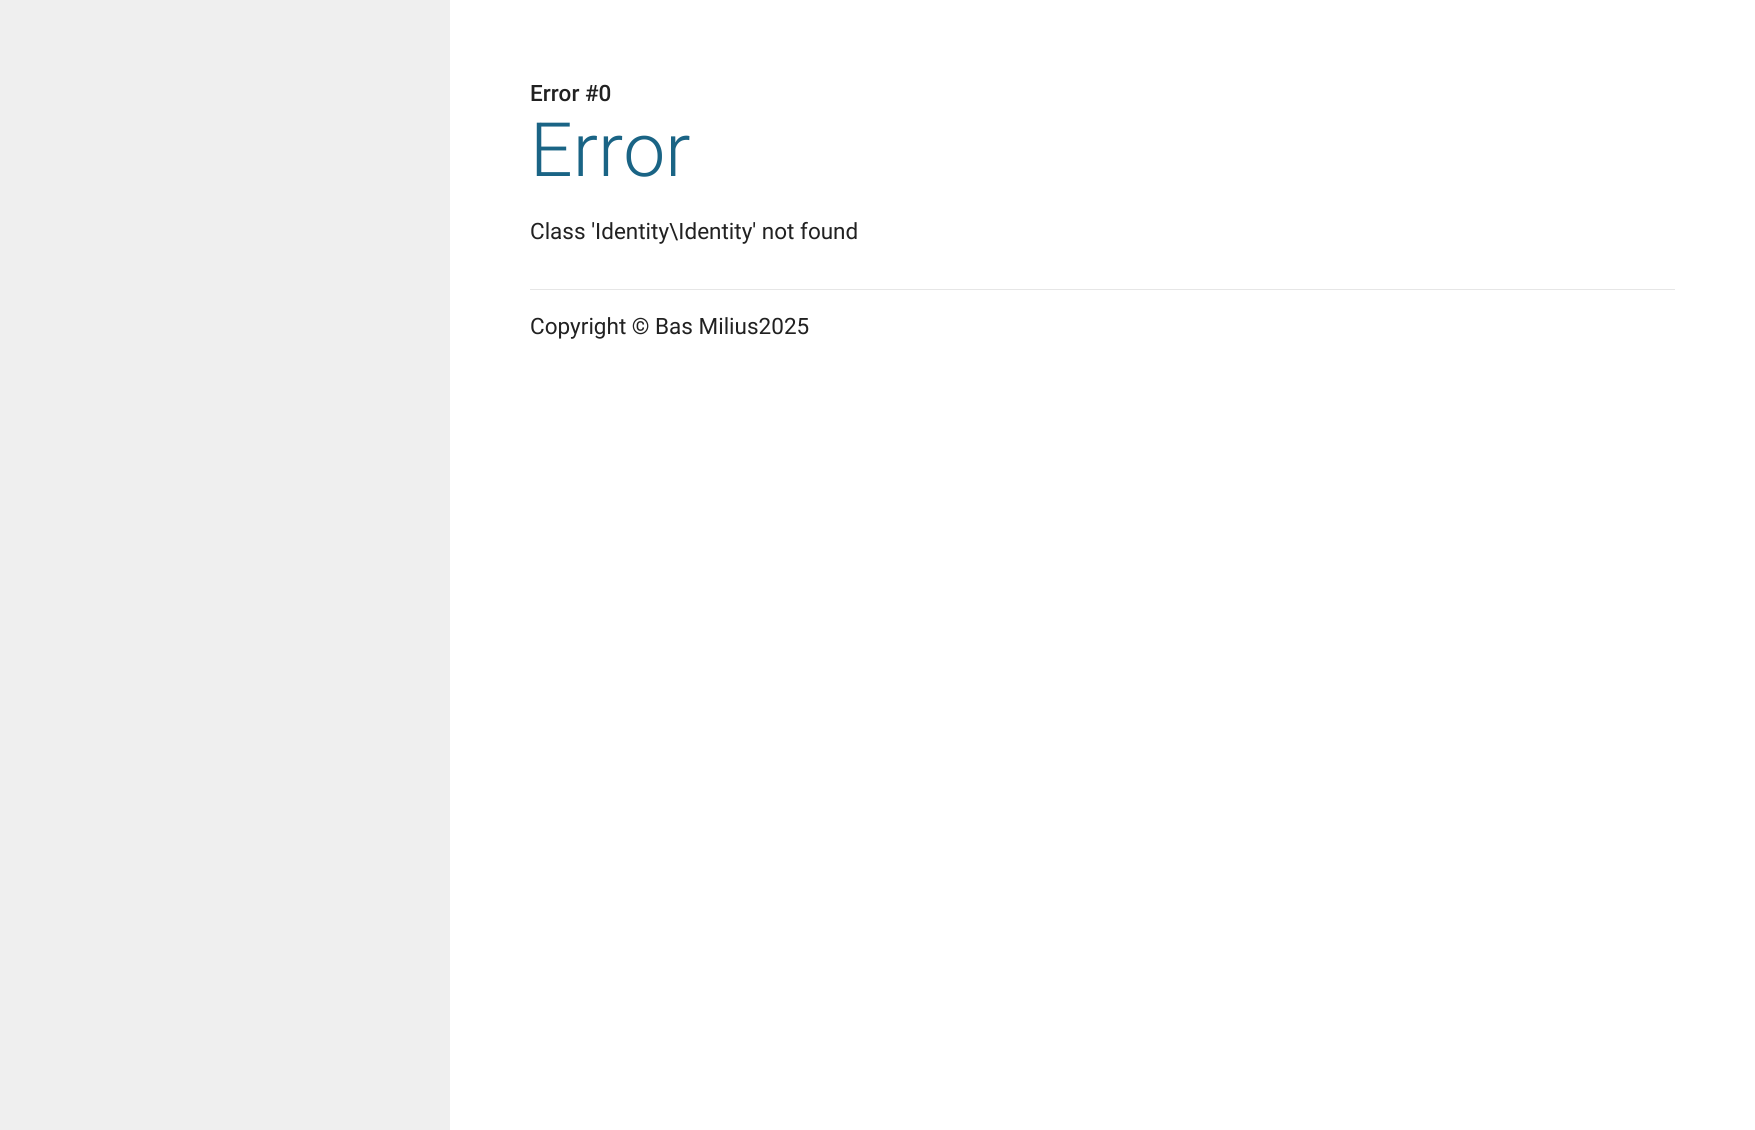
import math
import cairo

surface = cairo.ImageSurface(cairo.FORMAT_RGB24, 1755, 1130)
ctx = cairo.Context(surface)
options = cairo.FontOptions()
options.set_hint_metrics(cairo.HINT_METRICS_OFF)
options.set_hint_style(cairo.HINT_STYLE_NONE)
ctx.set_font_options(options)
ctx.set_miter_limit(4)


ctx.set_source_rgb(1, 1, 1)
ctx.paint()
ctx.set_source_rgb(0.937, 0.937, 0.937)
ctx.rectangle(0, 0, 450, 1130)
ctx.fill()
ctx.select_font_face("Roboto Medium")
ctx.set_font_size(22.5)
ctx.set_source_rgb(0.129, 0.129, 0.129)
ctx.move_to(530, 101)
ctx.show_text("Error #0")
ctx.select_font_face("Roboto Light")
ctx.set_font_size(75)
ctx.set_source_rgb(0.102, 0.392, 0.522)
ctx.move_to(530, 176)
ctx.show_text("Error")
ctx.select_font_face("Roboto")
ctx.set_font_size(22.5)
ctx.set_source_rgb(0.129, 0.129, 0.129)
ctx.move_to(530, 239)
ctx.show_text("Class 'Identity\\Identity' not found")
ctx.set_source_rgb(0.902, 0.902, 0.902)
ctx.rectangle(530, 289, 1145, 1)
ctx.fill()
ctx.set_source_rgb(0.129, 0.129, 0.129)
ctx.move_to(530, 334)
ctx.show_text("Copyright © Bas Milius2025")
surface.write_to_png("page.png")
